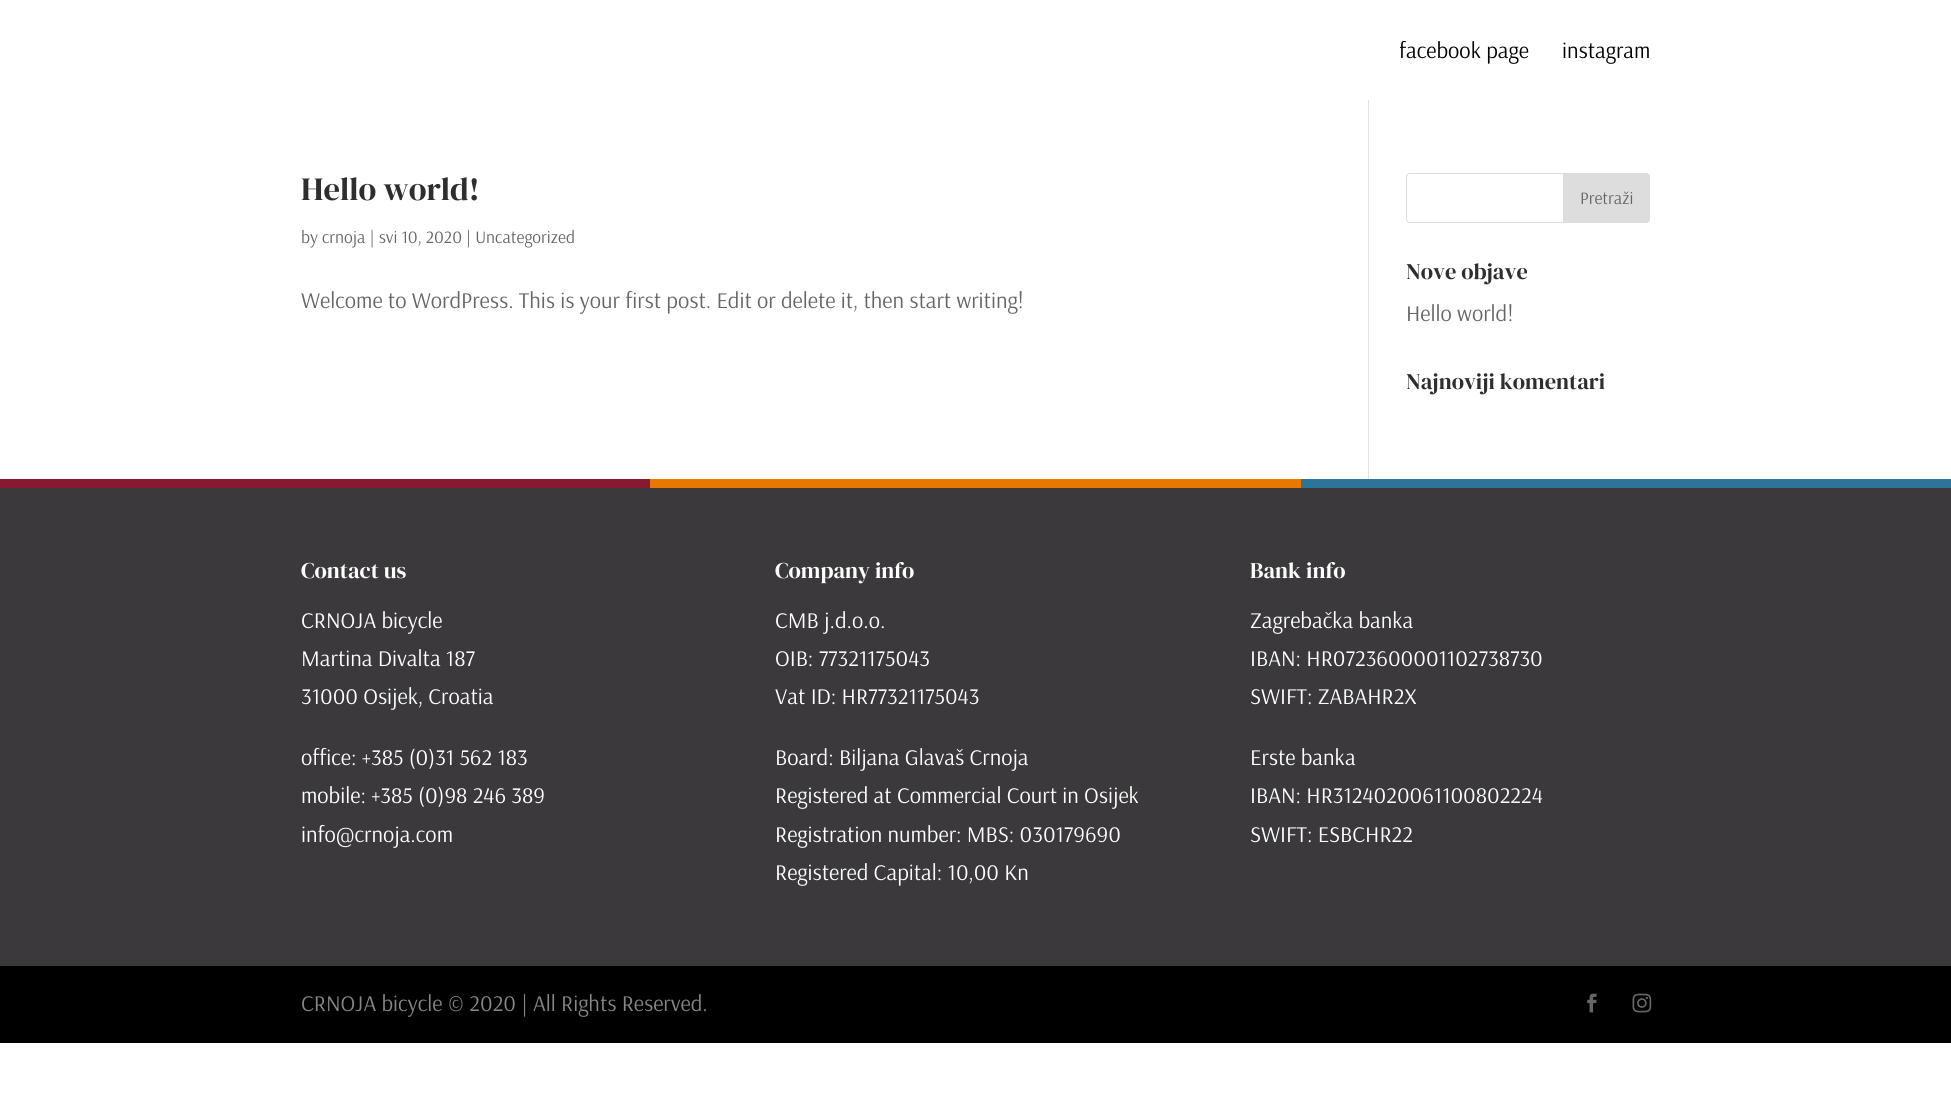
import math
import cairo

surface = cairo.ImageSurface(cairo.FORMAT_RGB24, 1951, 1100)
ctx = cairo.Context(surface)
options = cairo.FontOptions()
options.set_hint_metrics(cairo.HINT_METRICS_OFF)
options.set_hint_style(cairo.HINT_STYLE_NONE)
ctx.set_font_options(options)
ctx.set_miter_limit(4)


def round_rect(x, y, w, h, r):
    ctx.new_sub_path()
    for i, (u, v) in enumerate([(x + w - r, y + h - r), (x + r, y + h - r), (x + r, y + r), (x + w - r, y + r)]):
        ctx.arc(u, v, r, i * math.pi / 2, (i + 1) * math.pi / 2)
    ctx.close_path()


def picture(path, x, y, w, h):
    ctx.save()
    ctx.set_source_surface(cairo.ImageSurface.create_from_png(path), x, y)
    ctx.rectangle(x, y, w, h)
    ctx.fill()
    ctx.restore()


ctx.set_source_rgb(1, 1, 1)
ctx.paint()
ctx.select_font_face("Arsenal")
ctx.set_font_size(22.5)
ctx.set_source_rgb(0, 0, 0)
ctx.move_to(1399, 58)
ctx.show_text("facebook page")
ctx.move_to(1562, 58)
ctx.show_text("instagram")
ctx.set_source_rgb(0.886, 0.886, 0.886)
ctx.rectangle(1368, 100, 1, 379)
ctx.fill()
ctx.select_font_face("DM Serif Display")
ctx.set_font_size(32.5)
ctx.set_source_rgb(0.18, 0.18, 0.18)
ctx.move_to(301, 200)
ctx.show_text("Hello world!")
ctx.select_font_face("Arsenal")
ctx.set_font_size(17.5)
ctx.set_source_rgb(0.4, 0.4, 0.4)
ctx.move_to(301, 243)
ctx.show_text("by crnoja | svi 10, 2020 | Uncategorized")
ctx.set_font_size(22.5)
ctx.move_to(301, 308)
ctx.show_text("Welcome to WordPress. This is your first post. Edit or delete it, then start writing!")
round_rect(1406.5, 173.5, 243, 49, 3.5)
ctx.set_source_rgb(0.867, 0.867, 0.867)
ctx.set_line_width(1)
ctx.stroke()
ctx.new_path()
ctx.move_to(1563.5, 173.5)
ctx.line_to(1646, 173.5)
ctx.curve_to(1648, 173.5, 1649.5, 175, 1649.5, 177)
ctx.line_to(1649.5, 219)
ctx.curve_to(1649.5, 221, 1648, 222.5, 1646, 222.5)
ctx.line_to(1563.5, 222.5)
ctx.close_path()
ctx.fill_preserve()
ctx.stroke()
ctx.set_font_size(17.5)
ctx.set_source_rgb(0.4, 0.4, 0.4)
ctx.move_to(1580, 204)
ctx.show_text("Pretraži")
ctx.select_font_face("DM Serif Display")
ctx.set_font_size(22.5)
ctx.set_source_rgb(0.18, 0.18, 0.18)
ctx.move_to(1406, 279)
ctx.show_text("Nove objave")
ctx.select_font_face("Arsenal")
ctx.set_source_rgb(0.4, 0.4, 0.4)
ctx.move_to(1406, 321)
ctx.show_text("Hello world!")
ctx.select_font_face("DM Serif Display")
ctx.set_source_rgb(0.18, 0.18, 0.18)
ctx.move_to(1406, 389)
ctx.show_text("Najnoviji komentari")
ctx.set_source_rgb(0.522, 0.102, 0.192)
ctx.rectangle(0, 479, 650, 9)
ctx.fill()
ctx.set_source_rgb(0.91, 0.471, 0)
ctx.rectangle(650, 479, 651, 9)
ctx.fill()
ctx.set_source_rgb(0.18, 0.455, 0.596)
ctx.rectangle(1301, 479, 650, 9)
ctx.fill()
ctx.set_source_rgb(0.231, 0.224, 0.235)
ctx.rectangle(0, 488, 1951, 478)
ctx.fill()
ctx.set_source_rgb(1, 1, 1)
ctx.move_to(301, 578)
ctx.show_text("Contact us")
ctx.select_font_face("Arsenal")
ctx.move_to(301, 628)
ctx.show_text("CRNOJA bicycle")
ctx.move_to(301, 666)
ctx.show_text("Martina Divalta 187")
ctx.move_to(301, 704)
ctx.show_text("31000 Osijek, Croatia")
ctx.move_to(301, 765)
ctx.show_text("office: +385 (0)31 562 183")
ctx.move_to(301, 803)
ctx.show_text("mobile: +385 (0)98 246 389")
ctx.move_to(301, 842)
ctx.show_text("info@crnoja.com")
ctx.select_font_face("DM Serif Display")
ctx.move_to(775, 578)
ctx.show_text("Company info")
ctx.select_font_face("Arsenal")
ctx.move_to(775, 628)
ctx.show_text("CMB j.d.o.o.")
ctx.move_to(775, 666)
ctx.show_text("OIB: 77321175043")
ctx.move_to(775, 704)
ctx.show_text("Vat ID: HR77321175043")
ctx.move_to(775, 765)
ctx.show_text("Board: Biljana Glavaš Crnoja")
ctx.move_to(775, 803)
ctx.show_text("Registered at Commercial Court in Osijek")
ctx.move_to(775, 842)
ctx.show_text("Registration number: MBS: 030179690")
ctx.move_to(775, 880)
ctx.show_text("Registered Capital: 10,00 Kn")
ctx.select_font_face("DM Serif Display")
ctx.move_to(1250, 578)
ctx.show_text("Bank info")
ctx.select_font_face("Arsenal")
ctx.move_to(1250, 628)
ctx.show_text("Zagrebačka banka")
ctx.move_to(1250, 666)
ctx.show_text("IBAN: HR0723600001102738730")
ctx.move_to(1250, 704)
ctx.show_text("SWIFT: ZABAHR2X")
ctx.move_to(1250, 765)
ctx.show_text("Erste banka")
ctx.move_to(1250, 803)
ctx.show_text("IBAN: HR3124020061100802224")
ctx.move_to(1250, 842)
ctx.show_text("SWIFT: ESBCHR22")
ctx.set_source_rgb(0, 0, 0)
ctx.rectangle(0, 966, 1951, 77)
ctx.fill()
ctx.set_source_rgb(0.529, 0.529, 0.529)
ctx.move_to(301, 1011)
ctx.show_text("CRNOJA bicycle © 2020 | All Rights Reserved.")
picture("img1.png", 1587, 993, 10, 20)
picture("img2.png", 1632, 993, 20, 20)
surface.write_to_png("page.png")
